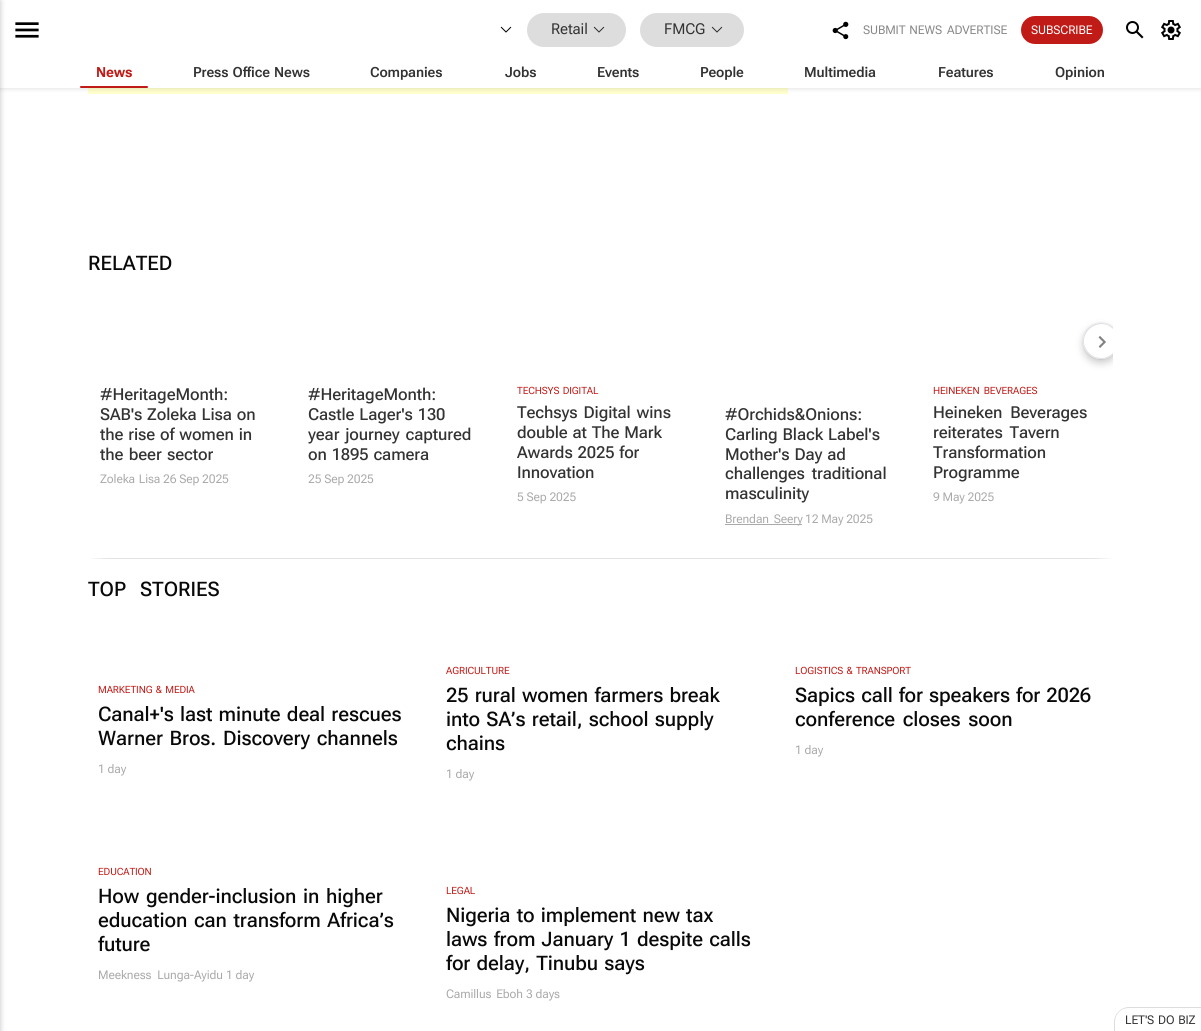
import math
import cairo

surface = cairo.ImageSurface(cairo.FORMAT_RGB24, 1201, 1031)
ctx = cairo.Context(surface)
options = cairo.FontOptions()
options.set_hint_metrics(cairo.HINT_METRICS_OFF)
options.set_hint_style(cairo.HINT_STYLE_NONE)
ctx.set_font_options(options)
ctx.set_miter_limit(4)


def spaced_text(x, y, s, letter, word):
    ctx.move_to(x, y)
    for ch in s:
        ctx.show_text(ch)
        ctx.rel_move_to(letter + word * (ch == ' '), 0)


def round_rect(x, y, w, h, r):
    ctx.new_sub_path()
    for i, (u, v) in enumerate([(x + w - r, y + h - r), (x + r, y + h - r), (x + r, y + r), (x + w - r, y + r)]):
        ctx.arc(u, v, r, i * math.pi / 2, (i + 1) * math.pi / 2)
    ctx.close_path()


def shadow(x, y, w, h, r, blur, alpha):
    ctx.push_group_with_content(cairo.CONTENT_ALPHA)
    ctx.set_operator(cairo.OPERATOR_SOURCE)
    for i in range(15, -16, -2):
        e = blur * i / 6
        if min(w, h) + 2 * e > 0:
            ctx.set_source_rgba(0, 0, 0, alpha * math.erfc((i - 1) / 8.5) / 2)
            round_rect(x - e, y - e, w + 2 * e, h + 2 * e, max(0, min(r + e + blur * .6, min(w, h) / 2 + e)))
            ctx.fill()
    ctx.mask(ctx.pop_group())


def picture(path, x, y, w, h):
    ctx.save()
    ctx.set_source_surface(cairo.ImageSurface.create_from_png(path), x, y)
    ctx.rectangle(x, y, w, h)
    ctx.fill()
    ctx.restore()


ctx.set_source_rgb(1, 1, 1)
ctx.paint()
ctx.set_source_rgb(1, 1, 0.8)
ctx.rectangle(88, 88, 700, 6)
ctx.fill()
ctx.set_source_rgb(0.255, 0.271, 0.286)
shadow(-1, 0, 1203, 90, 0, 1.5, 0.1)
ctx.set_source_rgb(1, 1, 1)
ctx.rectangle(0, 0, 1201, 88)
ctx.fill()
ctx.set_source_rgb(0.125, 0.129, 0.141)
shadow(-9, 1, 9, 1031, 0, 3, 0.28)
picture("img1.png", 15, 22, 24, 16)
picture("img2.png", 500, 26, 12, 7)
ctx.set_source_rgb(0.867, 0.867, 0.867)
round_rect(527, 13, 99, 34, 17)
ctx.fill()
ctx.select_font_face("Roboto Flex")
ctx.set_font_size(15)
ctx.set_source_rgb(0.2, 0.2, 0.2)
spaced_text(551, 34, "Retail", -0.1, 0)
picture("img3.png", 593, 26, 12, 7)
ctx.set_source_rgb(0.867, 0.867, 0.867)
round_rect(640, 13, 104, 34, 17)
ctx.fill()
ctx.set_source_rgb(0.2, 0.2, 0.2)
spaced_text(664, 34, "FMCG", -0.1, 0)
picture("img3.png", 711, 26, 12, 7)
picture("img4.png", 832, 21, 17, 19)
ctx.set_font_size(12)
ctx.set_source_rgb(0.533, 0.533, 0.533)
spaced_text(863, 34, "SUBMIT NEWS", -0.1, 1)
spaced_text(947, 34, "ADVERTISE", -0.1, 0)
ctx.set_source_rgb(0.757, 0.106, 0.09)
round_rect(1021, 16, 82, 28, 14)
ctx.fill()
ctx.set_source_rgb(1, 1, 1)
spaced_text(1031, 34, "SUBSCRIBE", -0.1, 0)
picture("img5.png", 1126, 21, 18, 18)
picture("img6.png", 1161, 20, 20, 20)
ctx.select_font_face("Roboto Flex", cairo.FONT_SLANT_NORMAL, cairo.FONT_WEIGHT_BOLD)
ctx.set_font_size(14)
ctx.set_source_rgb(0.757, 0.106, 0.09)
spaced_text(96, 77, "News", -0.1, 0)
round_rect(80, 86, 68, 2, 1)
ctx.fill()
ctx.select_font_face("Roboto Flex SemiBold")
ctx.set_source_rgb(0.2, 0.2, 0.2)
spaced_text(193, 77, "Press Office News", -0.1, 1)
spaced_text(370, 77, "Companies", -0.1, 0)
spaced_text(505, 77, "Jobs", -0.1, 0)
spaced_text(597, 77, "Events", -0.1, 0)
spaced_text(700, 77, "People", -0.1, 0)
spaced_text(804, 77, "Multimedia", -0.1, 0)
spaced_text(938, 77, "Features", -0.1, 0)
spaced_text(1055, 77, "Opinion", -0.1, 0)
ctx.select_font_face("Roboto Flex Medium")
ctx.set_font_size(20)
ctx.set_source_rgb(0.039, 0.039, 0.039)
ctx.move_to(88, 270)
ctx.show_text("RELATED")
ctx.save()
ctx.new_path()
ctx.move_to(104, 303)
ctx.line_to(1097, 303)
ctx.curve_to(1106, 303, 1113, 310, 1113, 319)
ctx.line_to(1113, 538)
ctx.line_to(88, 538)
ctx.line_to(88, 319)
ctx.curve_to(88, 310, 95, 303, 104, 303)
ctx.close_path()
ctx.clip()
ctx.set_source_rgb(0, 0, 0)
shadow(1083, 327, 36, 36, 18, 4, 0.2)
ctx.restore()
ctx.set_source_rgba(0, 0, 0, 0.04)
ctx.new_path()
ctx.move_to(1101, 322)
ctx.curve_to(1090.5, 322, 1082, 330.5, 1082, 341)
ctx.curve_to(1082, 351.5, 1090.5, 360, 1101, 360)
ctx.curve_to(1105.5, 360, 1109.5, 358.5, 1113, 355.5)
ctx.line_to(1113, 354.5)
ctx.curve_to(1097.5, 368, 1074, 348.5, 1086, 331)
ctx.curve_to(1088.5, 327, 1093, 324.5, 1097.5, 323.5)
ctx.curve_to(1103, 322, 1109, 324, 1113, 327.5)
ctx.line_to(1113, 326.5)
ctx.curve_to(1109.5, 323.5, 1105.5, 322, 1101, 322)
ctx.close_path()
ctx.fill()
ctx.save()
ctx.new_path()
ctx.move_to(104, 303)
ctx.line_to(1097, 303)
ctx.curve_to(1106, 303, 1113, 310, 1113, 319)
ctx.line_to(1113, 538)
ctx.line_to(88, 538)
ctx.line_to(88, 319)
ctx.curve_to(88, 310, 95, 303, 104, 303)
ctx.close_path()
ctx.clip()
ctx.set_source_rgb(1, 1, 1)
ctx.arc(1101, 341, 18, 0, 2 * math.pi)
ctx.fill()
ctx.restore()
ctx.set_source_rgb(0.875, 0.882, 0.898)
ctx.new_path()
ctx.move_to(1101, 323)
ctx.curve_to(1091, 323, 1083, 331, 1083, 341)
ctx.curve_to(1083, 351, 1091, 359, 1101, 359)
ctx.curve_to(1105.5, 359, 1110, 357.5, 1113, 354.5)
ctx.line_to(1113, 353)
ctx.curve_to(1109, 357, 1103, 359, 1097.5, 357.5)
ctx.curve_to(1093.5, 357, 1089.5, 354, 1087, 350.5)
ctx.curve_to(1075.5, 333.5, 1099, 315, 1113, 329)
ctx.line_to(1113, 327.5)
ctx.curve_to(1110, 324.5, 1105.5, 323, 1101, 323)
ctx.close_path()
ctx.fill()
picture("img7.png", 1098, 336, 8, 12)
ctx.set_font_size(16.5)
ctx.set_source_rgb(0.2, 0.2, 0.2)
spaced_text(100, 400, "#HeritageMonth:", -0.1, 0)
spaced_text(100, 420, "SAB's Zoleka Lisa on", -0.1, 1)
spaced_text(100, 440, "the rise of women in", -0.1, 1)
spaced_text(100, 460, "the beer sector", -0.1, 1.5)
ctx.select_font_face("Roboto Flex")
ctx.set_font_size(12)
ctx.set_source_rgb(0.667, 0.667, 0.667)
spaced_text(100, 483, "Zoleka Lisa", -0.1, 1)
spaced_text(163, 483, "26 Sep 2025", -0.1, 0)
ctx.select_font_face("Roboto Flex Medium")
ctx.set_font_size(16.5)
ctx.set_source_rgb(0.2, 0.2, 0.2)
spaced_text(308, 400, "#HeritageMonth:", -0.1, 0)
spaced_text(308, 420, "Castle Lager's 130", -0.1, 1)
spaced_text(308, 440, "year journey captured", -0.1, 2)
spaced_text(308, 460, "on 1895 camera", -0.1, 1)
ctx.select_font_face("Roboto Flex")
ctx.set_font_size(12)
ctx.set_source_rgb(0.667, 0.667, 0.667)
spaced_text(308, 483, "25 Sep 2025", -0.1, 0)
ctx.set_font_size(10)
ctx.set_source_rgb(0.757, 0.106, 0.09)
spaced_text(517, 394, "TECHSYS DIGITAL", -0.1, 1)
ctx.select_font_face("Roboto Flex Medium")
ctx.set_font_size(16.5)
ctx.set_source_rgb(0.2, 0.2, 0.2)
spaced_text(517, 418, "Techsys Digital wins", -0.1, 2)
spaced_text(517, 438, "double at The Mark", -0.1, 1)
spaced_text(517, 458, "Awards 2025 for", -0.1, 1)
spaced_text(517, 478, "Innovation", -0.1, 0)
ctx.select_font_face("Roboto Flex")
ctx.set_font_size(12)
ctx.set_source_rgb(0.667, 0.667, 0.667)
spaced_text(517, 501, "5 Sep 2025", -0.1, 0)
ctx.select_font_face("Roboto Flex Medium")
ctx.set_font_size(16.5)
ctx.set_source_rgb(0.2, 0.2, 0.2)
spaced_text(725, 420, "#Orchids&Onions:", -0.1, 0)
spaced_text(725, 440, "Carling Black Label's", -0.1, 1)
spaced_text(725, 460, "Mother's Day ad", -0.1, 1)
spaced_text(725, 479, "challenges traditional", -0.1, 3)
spaced_text(725, 499, "masculinity", -0.1, 0)
ctx.set_source_rgb(0.667, 0.667, 0.667)
ctx.rectangle(725, 524, 77, 1)
ctx.fill()
ctx.select_font_face("Roboto Flex")
ctx.set_font_size(12)
spaced_text(725, 523, "Brendan Seery", -0.1, 2)
spaced_text(805, 523, "12 May 2025", -0.1, 0)
ctx.set_font_size(10)
ctx.set_source_rgb(0.757, 0.106, 0.09)
spaced_text(933, 394, "HEINEKEN BEVERAGES", -0.1, 2)
ctx.select_font_face("Roboto Flex Medium")
ctx.set_font_size(16.5)
ctx.set_source_rgb(0.2, 0.2, 0.2)
spaced_text(933, 418, "Heineken Beverages", -0.1, 4)
spaced_text(933, 438, "reiterates Tavern", -0.1, 3)
spaced_text(933, 458, "Transformation", -0.1, 0)
spaced_text(933, 478, "Programme", -0.1, 0)
ctx.select_font_face("Roboto Flex")
ctx.set_font_size(12)
ctx.set_source_rgb(0.667, 0.667, 0.667)
spaced_text(933, 501, "9 May 2025", -0.1, 0)
picture("img8.png", 90, 558, 1021, 1)
ctx.select_font_face("Roboto Flex Medium")
ctx.set_font_size(20)
ctx.set_source_rgb(0.039, 0.039, 0.039)
spaced_text(88, 596, "TOP STORIES", 0, 9)
ctx.select_font_face("Roboto Flex")
ctx.set_font_size(10)
ctx.set_source_rgb(0.757, 0.106, 0.09)
spaced_text(98, 693, "MARKETING & MEDIA", -0.1, 1)
ctx.select_font_face("Roboto Flex Medium")
ctx.set_font_size(20)
ctx.set_source_rgb(0.039, 0.039, 0.039)
spaced_text(98, 721, "Canal+'s last minute deal rescues", -0.1, 1.5)
spaced_text(98, 745, "Warner Bros. Discovery channels", -0.1, 2)
ctx.select_font_face("Roboto Flex")
ctx.set_font_size(12)
ctx.set_source_rgb(0.667, 0.667, 0.667)
spaced_text(98, 773, "1 day", -0.1, 0)
ctx.set_font_size(10)
ctx.set_source_rgb(0.757, 0.106, 0.09)
spaced_text(446, 674, "AGRICULTURE", -0.1, 0)
ctx.select_font_face("Roboto Flex Medium")
ctx.set_font_size(20)
ctx.set_source_rgb(0.039, 0.039, 0.039)
spaced_text(446, 702, "25 rural women farmers break", -0.1, 1.5)
spaced_text(446, 726, "into SA’s retail, school supply", -0.1, 1.5)
spaced_text(446, 750, "chains", -0.1, 0)
ctx.select_font_face("Roboto Flex")
ctx.set_font_size(12)
ctx.set_source_rgb(0.667, 0.667, 0.667)
spaced_text(446, 778, "1 day", -0.1, 0)
ctx.set_font_size(10)
ctx.set_source_rgb(0.757, 0.106, 0.09)
spaced_text(795, 674, "LOGISTICS & TRANSPORT", -0.1, 1)
ctx.select_font_face("Roboto Flex Medium")
ctx.set_font_size(20)
ctx.set_source_rgb(0.039, 0.039, 0.039)
spaced_text(795, 702, "Sapics call for speakers for 2026", -0.1, 1.25)
spaced_text(795, 726, "conference closes soon", -0.1, 3)
ctx.select_font_face("Roboto Flex")
ctx.set_font_size(12)
ctx.set_source_rgb(0.667, 0.667, 0.667)
spaced_text(795, 754, "1 day", -0.1, 0)
ctx.set_font_size(10)
ctx.set_source_rgb(0.757, 0.106, 0.09)
spaced_text(98, 875, "EDUCATION", -0.1, 0)
ctx.select_font_face("Roboto Flex Medium")
ctx.set_font_size(20)
ctx.set_source_rgb(0.039, 0.039, 0.039)
spaced_text(98, 903, "How gender-inclusion in higher", -0.1, 2)
spaced_text(98, 927, "education can transform Africa’s", -0.1, 2)
spaced_text(98, 951, "future", -0.1, 0)
ctx.select_font_face("Roboto Flex")
ctx.set_font_size(12)
ctx.set_source_rgb(0.667, 0.667, 0.667)
spaced_text(98, 979, "Meekness Lunga-Ayidu", -0.1, 3)
spaced_text(226, 979, "1 day", -0.1, 0)
ctx.set_font_size(10)
ctx.set_source_rgb(0.757, 0.106, 0.09)
spaced_text(446, 894, "LEGAL", -0.1, 0)
ctx.select_font_face("Roboto Flex Medium")
ctx.set_font_size(20)
ctx.set_source_rgb(0.039, 0.039, 0.039)
spaced_text(446, 922, "Nigeria to implement new tax", -0.1, 1.5)
spaced_text(446, 946, "laws from January 1 despite calls", -0.1, 1.5)
spaced_text(446, 970, "for delay, Tinubu says", -0.1, 1.5)
ctx.select_font_face("Roboto Flex")
ctx.set_font_size(12)
ctx.set_source_rgb(0.667, 0.667, 0.667)
spaced_text(446, 998, "Camillus Eboh", -0.1, 2)
spaced_text(526, 998, "3 days", -0.1, 0)
ctx.set_source_rgb(0.867, 0.867, 0.867)
ctx.set_fill_rule(cairo.FILL_RULE_EVEN_ODD)
ctx.new_path()
ctx.move_to(1129, 1007)
ctx.line_to(1201, 1007)
ctx.line_to(1201, 1031)
ctx.line_to(1114, 1031)
ctx.line_to(1114, 1022)
ctx.curve_to(1114, 1014, 1121, 1007, 1129, 1007)
ctx.close_path()
ctx.move_to(1129, 1008)
ctx.line_to(1201, 1008)
ctx.line_to(1201, 1031)
ctx.line_to(1115, 1031)
ctx.line_to(1115, 1022)
ctx.curve_to(1115, 1014, 1121, 1008, 1129, 1008)
ctx.close_path()
ctx.fill()
ctx.set_source_rgb(0.2, 0.2, 0.2)
spaced_text(1125, 1024, "LET'S DO BIZ", -0.1, 1)
surface.write_to_png("page.png")
